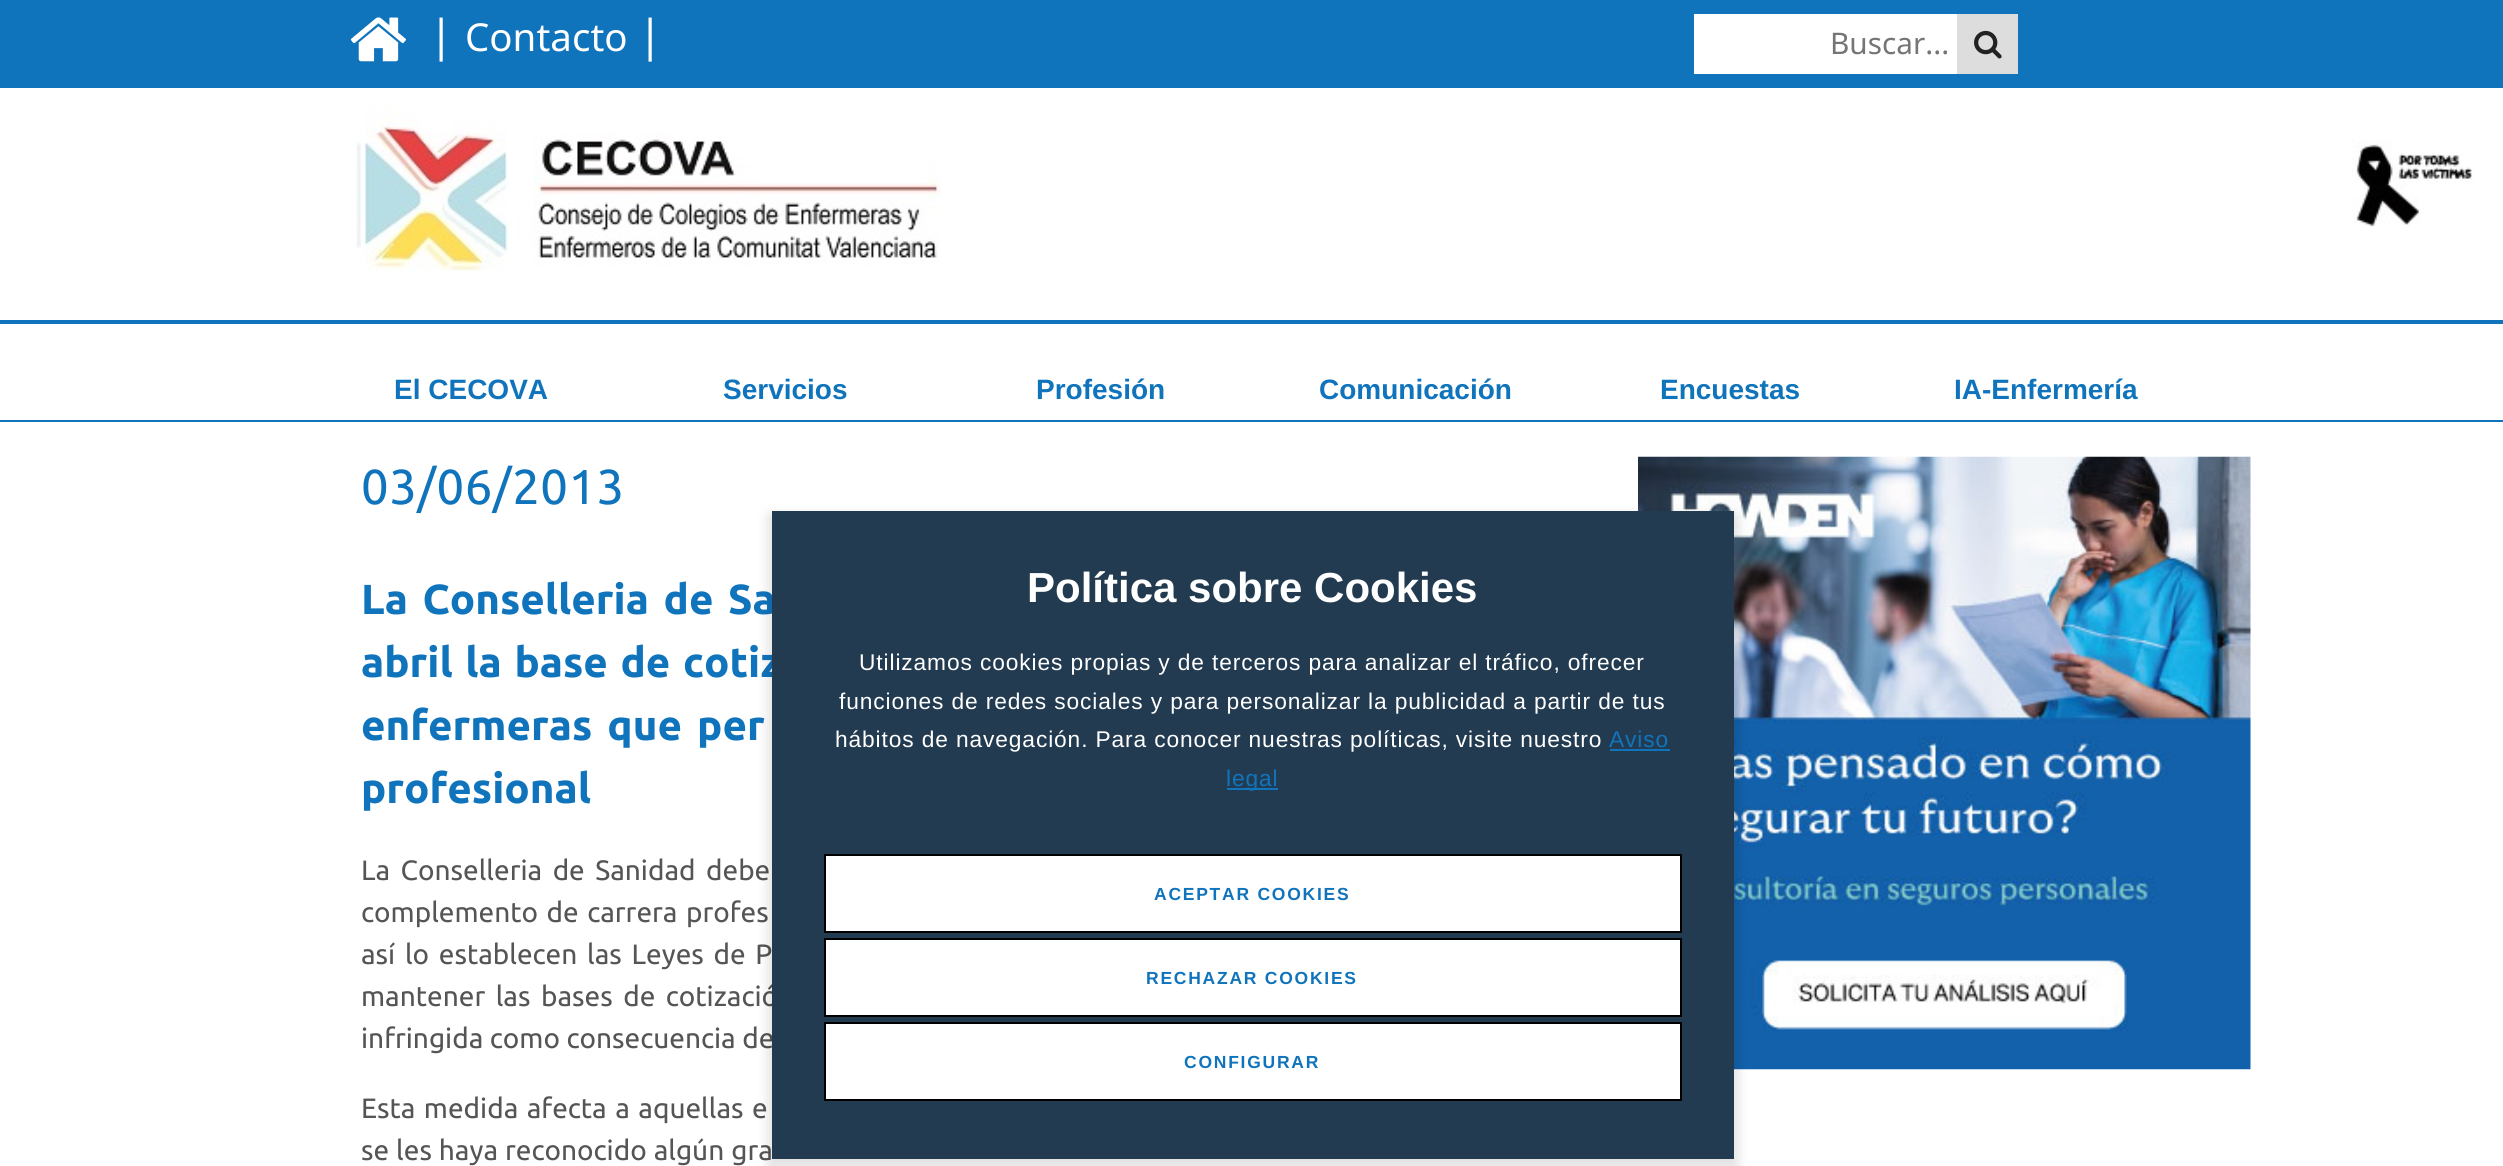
import math
import cairo

surface = cairo.ImageSurface(cairo.FORMAT_RGB24, 2503, 1166)
ctx = cairo.Context(surface)
options = cairo.FontOptions()
options.set_hint_metrics(cairo.HINT_METRICS_OFF)
options.set_hint_style(cairo.HINT_STYLE_NONE)
ctx.set_font_options(options)
ctx.set_miter_limit(4)


def spaced_text(x, y, s, letter, word):
    ctx.move_to(x, y)
    for ch in s:
        ctx.show_text(ch)
        ctx.rel_move_to(letter + word * (ch == ' '), 0)


def round_rect(x, y, w, h, r):
    ctx.new_sub_path()
    for i, (u, v) in enumerate([(x + w - r, y + h - r), (x + r, y + h - r), (x + r, y + r), (x + w - r, y + r)]):
        ctx.arc(u, v, r, i * math.pi / 2, (i + 1) * math.pi / 2)
    ctx.close_path()


def shadow(x, y, w, h, r, blur, alpha):
    ctx.push_group_with_content(cairo.CONTENT_ALPHA)
    ctx.set_operator(cairo.OPERATOR_SOURCE)
    for i in range(15, -16, -2):
        e = blur * i / 6
        if min(w, h) + 2 * e > 0:
            ctx.set_source_rgba(0, 0, 0, alpha * math.erfc((i - 1) / 8.5) / 2)
            round_rect(x - e, y - e, w + 2 * e, h + 2 * e, max(0, min(r + e + blur * .6, min(w, h) / 2 + e)))
            ctx.fill()
    ctx.mask(ctx.pop_group())


def picture(path, x, y, w, h):
    ctx.save()
    ctx.set_source_surface(cairo.ImageSurface.create_from_png(path), x, y)
    ctx.rectangle(x, y, w, h)
    ctx.fill()
    ctx.restore()


ctx.set_source_rgb(1, 1, 1)
ctx.paint()
ctx.set_source_rgb(0.063, 0.455, 0.737)
ctx.rectangle(0, 0, 2503, 88)
ctx.fill()
picture("img1.png", 350, 17, 56, 45)
ctx.select_font_face("Noto Sans")
ctx.set_font_size(44)
ctx.set_source_rgb(1, 1, 1)
ctx.move_to(429, 51)
ctx.show_text("|")
ctx.set_font_size(38.5)
ctx.move_to(465, 51)
ctx.show_text("Contacto")
ctx.set_font_size(44)
ctx.move_to(638, 51)
ctx.show_text("|")
ctx.rectangle(1694, 14, 263, 60)
ctx.fill()
ctx.set_font_size(29.75)
ctx.set_source_rgb(0.459, 0.459, 0.459)
ctx.move_to(1830, 54)
ctx.show_text("Buscar...")
ctx.set_source_rgb(0.867, 0.867, 0.867)
ctx.rectangle(1957, 14, 61, 60)
ctx.fill()
picture("img2.png", 1974, 30, 28, 29)
ctx.set_source_rgb(0.063, 0.455, 0.737)
ctx.rectangle(0, 320, 2503, 4)
ctx.fill()
picture("img3.png", 356, 105, 585, 166)
picture("img4.png", 2352, 140, 121, 87)
ctx.select_font_face("Liberation Sans", cairo.FONT_SLANT_NORMAL, cairo.FONT_WEIGHT_BOLD)
ctx.set_font_size(28)
ctx.move_to(394, 399)
ctx.show_text("El CECOVA")
ctx.move_to(723, 399)
ctx.show_text("Servicios")
ctx.move_to(1036, 399)
ctx.show_text("Profesión")
ctx.move_to(1319, 399)
ctx.show_text("Comunicación")
ctx.move_to(1660, 399)
ctx.show_text("Encuestas")
ctx.move_to(1954, 399)
ctx.show_text("IA-Enfermería")
ctx.rectangle(0, 420, 2503, 2)
ctx.fill()
ctx.select_font_face("Ubuntu")
ctx.set_font_size(49)
spaced_text(361, 504, "03/06/2013", 0.5, 0)
ctx.select_font_face("Ubuntu", cairo.FONT_SLANT_NORMAL, cairo.FONT_WEIGHT_BOLD)
ctx.set_font_size(42)
spaced_text(361, 614, "La Conselleria de Sa", 0, 4.5)
spaced_text(361, 677, "abril la base de cotiz", 0, 2.5)
spaced_text(361, 740, "enfermeras que per", 0, 5)
ctx.move_to(361, 803)
ctx.show_text("profesional")
ctx.select_font_face("Ubuntu")
ctx.set_font_size(28)
ctx.set_source_rgb(0.333, 0.333, 0.333)
spaced_text(361, 880, "La Conselleria de Sanidad debe", 0, 4)
spaced_text(361, 922, "complemento de carrera profes", 0, 2)
spaced_text(361, 964, "así lo establecen las Leyes de P", 0, 3.25)
spaced_text(361, 1006, "mantener las bases de cotizació", 0, 4)
ctx.move_to(361, 1048)
ctx.show_text("infringida como consecuencia de")
spaced_text(361, 1118, "Esta medida afecta a aquellas e", 0, 2)
spaced_text(361, 1160, "se les haya reconocido algún gra", 0, 0.5)
picture("img5.png", 1638, 456, 613, 614)
ctx.set_source_rgb(0, 0, 0)
shadow(768, 515, 970, 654, 0, 6, 0.12)
ctx.set_source_rgb(0.133, 0.231, 0.318)
ctx.rectangle(772, 511, 962, 648)
ctx.fill()
ctx.select_font_face("Liberation Sans", cairo.FONT_SLANT_NORMAL, cairo.FONT_WEIGHT_BOLD)
ctx.set_font_size(42)
ctx.set_source_rgb(1, 1, 1)
ctx.move_to(1027, 602)
ctx.show_text("Política sobre Cookies")
ctx.select_font_face("Liberation Sans")
ctx.set_font_size(22.75)
spaced_text(859, 670, "Utilizamos cookies propias y de terceros para analizar el tráfico, ofrecer", 0.88, 0)
spaced_text(839, 709, "funciones de redes sociales y para personalizar la publicidad a partir de tus", 0.88, 0)
spaced_text(835, 747, "hábitos de navegación. Para conocer nuestras políticas, visite nuestro", 0.88, 0)
ctx.set_source_rgb(0.063, 0.455, 0.737)
spaced_text(1609, 747, "Aviso", 0.88, 0)
ctx.rectangle(1610, 749, 60, 2)
ctx.fill()
ctx.rectangle(1227, 788, 51, 2)
ctx.fill()
spaced_text(1226, 786, "legal", 0.88, 0)
ctx.set_source_rgb(1, 1, 1)
ctx.rectangle(825, 855, 856, 77)
ctx.fill_preserve()
ctx.set_source_rgb(0, 0, 0)
ctx.stroke()
ctx.select_font_face("Liberation Sans", cairo.FONT_SLANT_NORMAL, cairo.FONT_WEIGHT_BOLD)
ctx.set_font_size(17.5)
ctx.set_source_rgb(0.063, 0.455, 0.737)
spaced_text(1154, 900, "ACEPTAR COOKIES", 1.75, 0)
ctx.set_source_rgb(1, 1, 1)
ctx.rectangle(825, 939, 856, 77)
ctx.fill_preserve()
ctx.set_source_rgb(0, 0, 0)
ctx.stroke()
ctx.set_source_rgb(0.063, 0.455, 0.737)
spaced_text(1146, 984, "RECHAZAR COOKIES", 1.75, 0)
ctx.set_source_rgb(1, 1, 1)
ctx.rectangle(825, 1023, 856, 77)
ctx.fill_preserve()
ctx.set_source_rgb(0, 0, 0)
ctx.stroke()
ctx.set_source_rgb(0.063, 0.455, 0.737)
spaced_text(1184, 1068, "CONFIGURAR", 1.75, 0)
surface.write_to_png("page.png")
